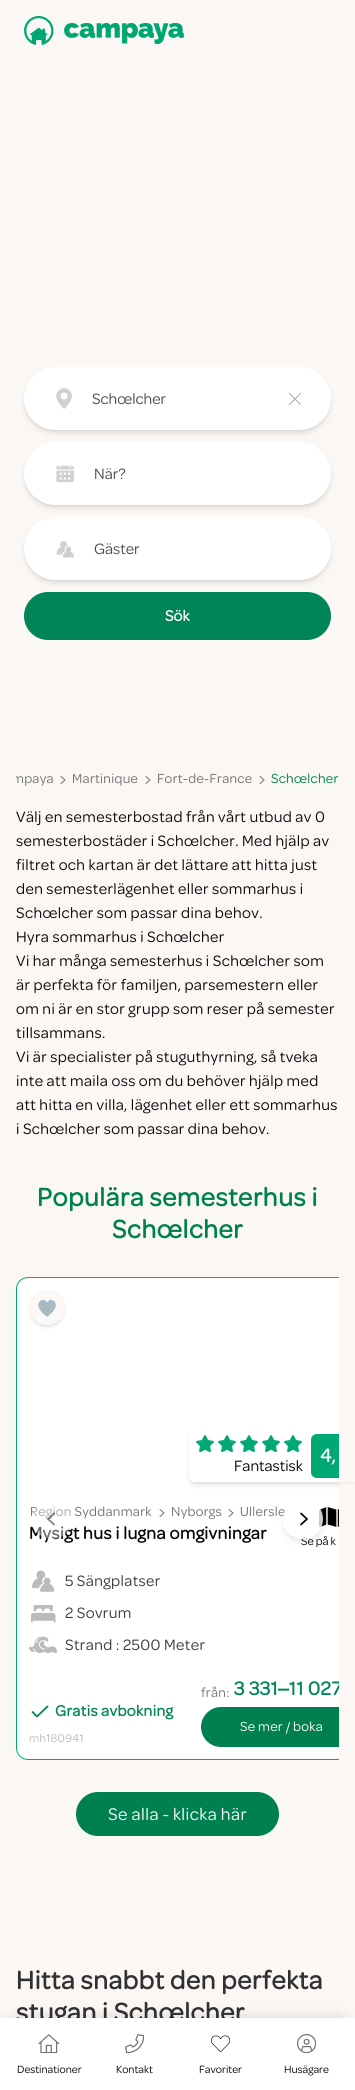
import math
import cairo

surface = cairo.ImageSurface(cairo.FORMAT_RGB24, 355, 2090)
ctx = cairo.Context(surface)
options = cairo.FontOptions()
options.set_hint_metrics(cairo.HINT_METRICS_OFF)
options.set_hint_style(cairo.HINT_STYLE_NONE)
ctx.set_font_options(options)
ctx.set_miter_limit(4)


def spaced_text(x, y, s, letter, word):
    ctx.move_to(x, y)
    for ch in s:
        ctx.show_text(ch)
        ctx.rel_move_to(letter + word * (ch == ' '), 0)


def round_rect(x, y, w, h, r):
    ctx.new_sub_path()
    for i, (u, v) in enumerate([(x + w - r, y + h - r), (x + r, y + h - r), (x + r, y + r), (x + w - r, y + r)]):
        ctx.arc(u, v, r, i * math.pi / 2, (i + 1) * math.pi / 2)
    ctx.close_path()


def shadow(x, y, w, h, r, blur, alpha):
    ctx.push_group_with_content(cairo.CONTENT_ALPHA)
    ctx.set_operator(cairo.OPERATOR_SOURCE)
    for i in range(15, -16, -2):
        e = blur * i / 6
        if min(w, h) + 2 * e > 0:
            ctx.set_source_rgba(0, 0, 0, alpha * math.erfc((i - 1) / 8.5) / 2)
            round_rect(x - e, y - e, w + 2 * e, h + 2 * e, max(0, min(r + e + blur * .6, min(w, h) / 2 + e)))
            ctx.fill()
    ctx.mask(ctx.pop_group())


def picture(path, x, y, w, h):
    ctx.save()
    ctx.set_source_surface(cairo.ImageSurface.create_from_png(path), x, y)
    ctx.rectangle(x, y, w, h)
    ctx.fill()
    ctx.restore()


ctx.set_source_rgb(0.98, 0.965, 0.957)
ctx.paint()
picture("img1.png", 24, 16, 160, 29)
ctx.set_source_rgb(0, 0, 0)
shadow(26, 371, 303, 59, 29.5, 2, 0.1)
shadow(26, 446, 303, 59, 29.5, 2, 0.1)
shadow(25, 447, 305, 61, 30.5, 3, 0.1)
ctx.set_source_rgb(1, 1, 1)
round_rect(24, 442, 307, 63, 31.5)
ctx.fill()
ctx.set_source_rgb(0, 0, 0)
shadow(25, 372, 305, 61, 30.5, 3, 0.1)
ctx.set_source_rgb(1, 1, 1)
round_rect(24, 367, 307, 63, 31.5)
ctx.fill()
picture("img2.png", 56, 388, 16, 21)
ctx.select_font_face("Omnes")
ctx.set_font_size(16)
ctx.set_source_rgb(0.302, 0.302, 0.302)
ctx.move_to(92, 404)
ctx.show_text("Schœlcher")
picture("img3.png", 288, 392, 14, 14)
picture("img4.png", 56, 465, 18, 18)
ctx.move_to(94, 479)
ctx.show_text("När?")
ctx.set_source_rgb(0, 0, 0)
shadow(26, 521, 303, 59, 29.5, 2, 0.1)
shadow(25, 522, 305, 61, 30.5, 3, 0.1)
ctx.set_source_rgb(1, 1, 1)
round_rect(24, 517, 307, 63, 31.5)
ctx.fill()
picture("img5.png", 56, 541, 18, 17)
ctx.set_source_rgb(0.302, 0.302, 0.302)
ctx.move_to(94, 554)
ctx.show_text("Gäster")
ctx.set_source_rgb(0, 0.522, 0.345)
round_rect(24, 592, 307, 48, 24)
ctx.fill()
ctx.select_font_face("Omnes", cairo.FONT_SLANT_NORMAL, cairo.FONT_WEIGHT_BOLD)
ctx.set_source_rgb(0.98, 0.98, 0.98)
ctx.move_to(165, 621)
ctx.show_text("Sök")
ctx.save()
ctx.rectangle(16, 769, 323, 20)
ctx.clip()
ctx.select_font_face("Omnes")
ctx.set_font_size(14)
ctx.set_source_rgb(0.451, 0.451, 0.451)
spaced_text(12, 783, "mpaya", 0.3, 0)
ctx.restore()
ctx.new_path()
ctx.move_to(61, 783.5)
ctx.line_to(65, 780)
ctx.line_to(61, 776.5)
ctx.set_source_rgb(0.451, 0.451, 0.451)
ctx.set_line_width(1)
ctx.set_line_cap(cairo.LINE_CAP_ROUND)
ctx.set_line_join(cairo.LINE_JOIN_ROUND)
ctx.stroke()
ctx.select_font_face("Omnes")
ctx.set_font_size(14)
spaced_text(72, 783, "Martinique", 0.3, 0)
ctx.new_path()
ctx.move_to(146, 783.5)
ctx.line_to(150, 780)
ctx.line_to(146, 776.5)
ctx.stroke()
spaced_text(157, 783, "Fort-de-France", 0.3, 0)
ctx.new_path()
ctx.move_to(260, 783.5)
ctx.line_to(264, 780)
ctx.line_to(260, 776.5)
ctx.stroke()
ctx.set_source_rgb(0, 0.502, 0.318)
spaced_text(271, 783, "Schœlcher", 0.3, 0)
ctx.set_font_size(16)
ctx.set_source_rgb(0.039, 0.039, 0.039)
spaced_text(16, 822, "Välj en semesterbostad från vårt utbud av 0", 0.4, 0)
spaced_text(16, 846, "semesterbostäder i Schœlcher. Med hjälp av", 0.4, 0)
spaced_text(16, 870, "filtret och kartan är det lättare att hitta just", 0.4, 0)
spaced_text(16, 894, "den semesterlägenhet eller sommarhus i", 0.4, 0)
spaced_text(16, 918, "Schœlcher som passar dina behov.", 0.4, 0)
spaced_text(16, 942, "Hyra sommarhus i Schœlcher", 0.4, 0)
spaced_text(16, 966, "Vi har många semesterhus i Schœlcher som", 0.4, 0)
spaced_text(16, 990, "är perfekta för familjen, parsemestern eller", 0.4, 0)
spaced_text(16, 1014, "om ni är en stor grupp som reser på semester", 0.4, 0)
spaced_text(16, 1038, "tillsammans.", 0.4, 0)
spaced_text(16, 1062, "Vi är specialister på stuguthyrning, så tveka", 0.4, 0)
spaced_text(16, 1086, "inte att maila oss om du behöver hjälp med", 0.4, 0)
spaced_text(16, 1110, "att hitta en villa, lägenhet eller ett sommarhus", 0.4, 0)
spaced_text(16, 1134, "i Schœlcher som passar dina behov.", 0.4, 0)
ctx.select_font_face("Omnes", cairo.FONT_SLANT_NORMAL, cairo.FONT_WEIGHT_BOLD)
ctx.set_font_size(27)
ctx.set_source_rgb(0, 0.502, 0.318)
spaced_text(37, 1206, "Populära semesterhus i", 0.7, 0)
spaced_text(112, 1238, "Schœlcher", 0.7, 0)
ctx.set_source_rgb(1, 1, 1)
ctx.new_path()
ctx.move_to(28, 1277)
ctx.line_to(339, 1277)
ctx.line_to(339, 1760)
ctx.line_to(28, 1760)
ctx.curve_to(21.5, 1760, 16, 1754.5, 16, 1748)
ctx.line_to(16, 1289)
ctx.curve_to(16, 1282.5, 21.5, 1277, 28, 1277)
ctx.close_path()
ctx.fill()
ctx.save()
ctx.rectangle(16, 1277, 323, 483)
ctx.clip()
round_rect(16.5, 1277.5, 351, 482, 11.5)
ctx.set_source_rgb(0, 0.659, 0.451)
ctx.set_line_cap(cairo.LINE_CAP_BUTT)
ctx.set_line_join(cairo.LINE_JOIN_MITER)
ctx.stroke()
ctx.restore()
ctx.set_source_rgb(0, 0, 0)
shadow(30, 1292, 34, 33, 16.5, 1, 0.1)
shadow(30, 1293, 34, 34, 17, 2, 0.1)
ctx.set_source_rgb(0.984, 0.969, 0.965)
round_rect(29, 1290, 36, 35, 17.5)
ctx.fill()
picture("img6.png", 38, 1299, 18, 18)
ctx.save()
ctx.set_fill_rule(cairo.FILL_RULE_EVEN_ODD)
ctx.new_path()
ctx.move_to(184, 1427)
ctx.line_to(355, 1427)
ctx.line_to(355, 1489)
ctx.line_to(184, 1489)
ctx.close_path()
ctx.move_to(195, 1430)
ctx.line_to(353, 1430)
ctx.curve_to(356.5, 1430, 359, 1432.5, 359, 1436)
ctx.line_to(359, 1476)
ctx.curve_to(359, 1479.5, 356.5, 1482, 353, 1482)
ctx.line_to(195, 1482)
ctx.curve_to(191.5, 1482, 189, 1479.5, 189, 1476)
ctx.line_to(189, 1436)
ctx.curve_to(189, 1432.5, 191.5, 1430, 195, 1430)
ctx.close_path()
ctx.clip()
ctx.set_source_rgb(0, 0, 0)
shadow(191, 1434, 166, 48, 4, 2, 0.1)
ctx.restore()
ctx.save()
ctx.rectangle(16, 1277, 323, 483)
ctx.clip()
ctx.set_source_rgb(0, 0, 0)
shadow(190, 1435, 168, 50, 5, 3, 0.1)
ctx.restore()
ctx.set_source_rgb(1, 1, 1)
ctx.new_path()
ctx.move_to(195, 1430)
ctx.line_to(339, 1430)
ctx.line_to(339, 1482)
ctx.line_to(195, 1482)
ctx.curve_to(191.5, 1482, 189, 1479.5, 189, 1476)
ctx.line_to(189, 1436)
ctx.curve_to(189, 1432.5, 191.5, 1430, 195, 1430)
ctx.close_path()
ctx.fill()
picture("img7.png", 196, 1435, 18, 17)
picture("img7.png", 218, 1435, 18, 17)
picture("img7.png", 240, 1435, 18, 17)
picture("img7.png", 262, 1435, 18, 17)
picture("img7.png", 284, 1435, 18, 17)
ctx.select_font_face("Omnes")
ctx.set_font_size(16)
ctx.set_source_rgb(0.039, 0.039, 0.039)
ctx.move_to(234, 1471)
ctx.show_text("Fantastisk")
ctx.set_source_rgb(0, 0.659, 0.451)
ctx.new_path()
ctx.move_to(317, 1434)
ctx.line_to(339, 1434)
ctx.line_to(339, 1478)
ctx.line_to(317, 1478)
ctx.curve_to(313.5, 1478, 311, 1475.5, 311, 1472)
ctx.line_to(311, 1440)
ctx.curve_to(311, 1436.5, 313.5, 1434, 317, 1434)
ctx.close_path()
ctx.fill()
ctx.select_font_face("Omnes", cairo.FONT_SLANT_NORMAL, cairo.FONT_WEIGHT_BOLD)
ctx.set_font_size(20)
ctx.set_source_rgb(0.98, 0.98, 0.98)
ctx.move_to(320, 1462)
ctx.show_text("4,")
ctx.select_font_face("Omnes")
ctx.set_font_size(14)
ctx.set_source_rgb(0.451, 0.451, 0.451)
spaced_text(30, 1516, "Region Syddanmark", 0.3, 0)
ctx.new_path()
ctx.move_to(160, 1516.5)
ctx.line_to(164, 1513)
ctx.line_to(160, 1509.5)
ctx.stroke()
spaced_text(171, 1516, "Nyborgs", 0.3, 0)
ctx.new_path()
ctx.move_to(229, 1516.5)
ctx.line_to(233, 1513)
ctx.line_to(229, 1509.5)
ctx.stroke()
spaced_text(240, 1516, "Ullersle", 0.3, 0)
ctx.select_font_face("Omnes", cairo.FONT_SLANT_NORMAL, cairo.FONT_WEIGHT_BOLD)
ctx.set_font_size(18)
ctx.set_source_rgb(0.039, 0.039, 0.039)
spaced_text(29, 1539, "Mysigt hus i lugna omgivningar", 0.45, 0)
picture("img8.png", 319, 1507, 20, 20)
ctx.select_font_face("Omnes")
ctx.set_font_size(12)
ctx.move_to(301, 1545)
ctx.show_text("Se på k")
picture("img9.png", 32, 1570, 23, 22)
ctx.set_font_size(16)
ctx.set_source_rgb(0.231, 0.231, 0.231)
spaced_text(65, 1586, "5 Sängplatser", 0.4, 0)
picture("img10.png", 31, 1605, 25, 18)
spaced_text(65, 1618, "2 Sovrum", 0.4, 0)
picture("img11.png", 29, 1636, 28, 17)
spaced_text(65, 1650, "Strand : 2500 Meter", 0.4, 0)
ctx.new_path()
ctx.move_to(47.5, 1706.5)
ctx.line_to(37, 1716.5)
ctx.line_to(32.5, 1712)
ctx.set_source_rgb(0, 0.522, 0.345)
ctx.set_line_width(1.8)
ctx.stroke()
ctx.select_font_face("Omnes", cairo.FONT_SLANT_NORMAL, cairo.FONT_WEIGHT_BOLD)
spaced_text(55, 1716, "Gratis avbokning", 0.4, 0)
ctx.select_font_face("Omnes")
ctx.set_font_size(12)
ctx.set_source_rgb(0.725, 0.725, 0.725)
spaced_text(29, 1742, "mh180941", 0.25, 0)
ctx.set_font_size(14)
ctx.set_source_rgb(0.451, 0.451, 0.451)
spaced_text(201, 1697, "från:", 0.3, 0)
ctx.select_font_face("Omnes", cairo.FONT_SLANT_NORMAL, cairo.FONT_WEIGHT_BOLD)
ctx.set_font_size(20)
ctx.set_source_rgb(0, 0.522, 0.345)
spaced_text(234, 1695, "3 331", 0.5, 0)
ctx.select_font_face("Liberation Sans", cairo.FONT_SLANT_NORMAL, cairo.FONT_WEIGHT_BOLD)
spaced_text(278, 1695, "‒", 0.5, 0)
ctx.save()
ctx.rectangle(16, 1277, 323, 483)
ctx.clip()
ctx.select_font_face("Omnes", cairo.FONT_SLANT_NORMAL, cairo.FONT_WEIGHT_BOLD)
spaced_text(289, 1695, "11 027", 0.5, 0)
ctx.restore()
ctx.set_source_rgb(0, 0.502, 0.318)
ctx.new_path()
ctx.move_to(221, 1707)
ctx.line_to(339, 1707)
ctx.line_to(339, 1747)
ctx.line_to(221, 1747)
ctx.curve_to(210, 1747, 201, 1738, 201, 1727)
ctx.curve_to(201, 1716, 210, 1707, 221, 1707)
ctx.close_path()
ctx.fill()
ctx.select_font_face("Omnes")
ctx.set_font_size(14)
ctx.set_source_rgb(0.98, 0.98, 0.98)
spaced_text(240, 1731, "Se mer / boka", 0.3, 0)
ctx.set_source_rgba(1, 1, 1, 0.4)
ctx.new_path()
ctx.arc(52, 1519, 20, 0, 2 * math.pi)
ctx.fill()
ctx.new_path()
ctx.move_to(54, 1524.5)
ctx.line_to(48, 1519)
ctx.line_to(54, 1513.5)
ctx.set_source_rgba(0.039, 0.039, 0.039, 0.5)
ctx.stroke()
ctx.save()
ctx.set_fill_rule(cairo.FILL_RULE_EVEN_ODD)
ctx.new_path()
ctx.move_to(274, 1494)
ctx.line_to(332, 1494)
ctx.line_to(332, 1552)
ctx.line_to(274, 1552)
ctx.close_path()
ctx.move_to(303, 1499)
ctx.curve_to(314, 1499, 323, 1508, 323, 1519)
ctx.curve_to(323, 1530, 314, 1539, 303, 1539)
ctx.curve_to(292, 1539, 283, 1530, 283, 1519)
ctx.curve_to(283, 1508, 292, 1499, 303, 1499)
ctx.close_path()
ctx.clip()
ctx.set_source_rgb(0, 0, 0)
shadow(284, 1504, 38, 38, 19, 3, 0.1)
ctx.restore()
ctx.set_source_rgba(1, 1, 1, 0.8)
ctx.arc(303, 1519, 20, 0, 2 * math.pi)
ctx.fill()
ctx.new_path()
ctx.move_to(301, 1524.5)
ctx.line_to(307, 1519)
ctx.line_to(301, 1513.5)
ctx.set_source_rgb(0.039, 0.039, 0.039)
ctx.stroke()
ctx.set_source_rgb(0, 0.502, 0.318)
round_rect(76, 1792, 203, 44, 22)
ctx.fill()
ctx.set_font_size(18)
ctx.set_source_rgb(0.98, 0.98, 0.98)
spaced_text(108, 1820, "Se alla - klicka här", 0.45, 0)
ctx.select_font_face("Omnes", cairo.FONT_SLANT_NORMAL, cairo.FONT_WEIGHT_BOLD)
ctx.set_font_size(27)
ctx.set_source_rgb(0.196, 0.192, 0.192)
spaced_text(16, 1989, "Hitta snabbt den perfekta", 0.7, 0)
spaced_text(16, 2021, "stugan i Schœlcher", 0.7, 0)
ctx.set_source_rgb(0, 0, 0)
shadow(15, 2029, 325, 42, 0, 10, 0.6)
ctx.set_source_rgb(1, 1, 1)
ctx.rectangle(0, 2018, 355, 72)
ctx.fill()
picture("img12.png", 38, 2034, 22, 19)
ctx.select_font_face("Omnes")
ctx.set_font_size(11.25)
ctx.set_source_rgb(0.039, 0.039, 0.039)
ctx.move_to(17, 2073)
ctx.show_text("Destinationer")
picture("img13.png", 125, 2034, 19, 19)
ctx.move_to(116, 2073)
ctx.show_text("Kontakt")
picture("img14.png", 211, 2035, 19, 17)
ctx.move_to(199, 2073)
ctx.show_text("Favoriter")
picture("img15.png", 297, 2034, 19, 19)
ctx.move_to(284, 2073)
ctx.show_text("Husägare")
surface.write_to_png("page.png")
